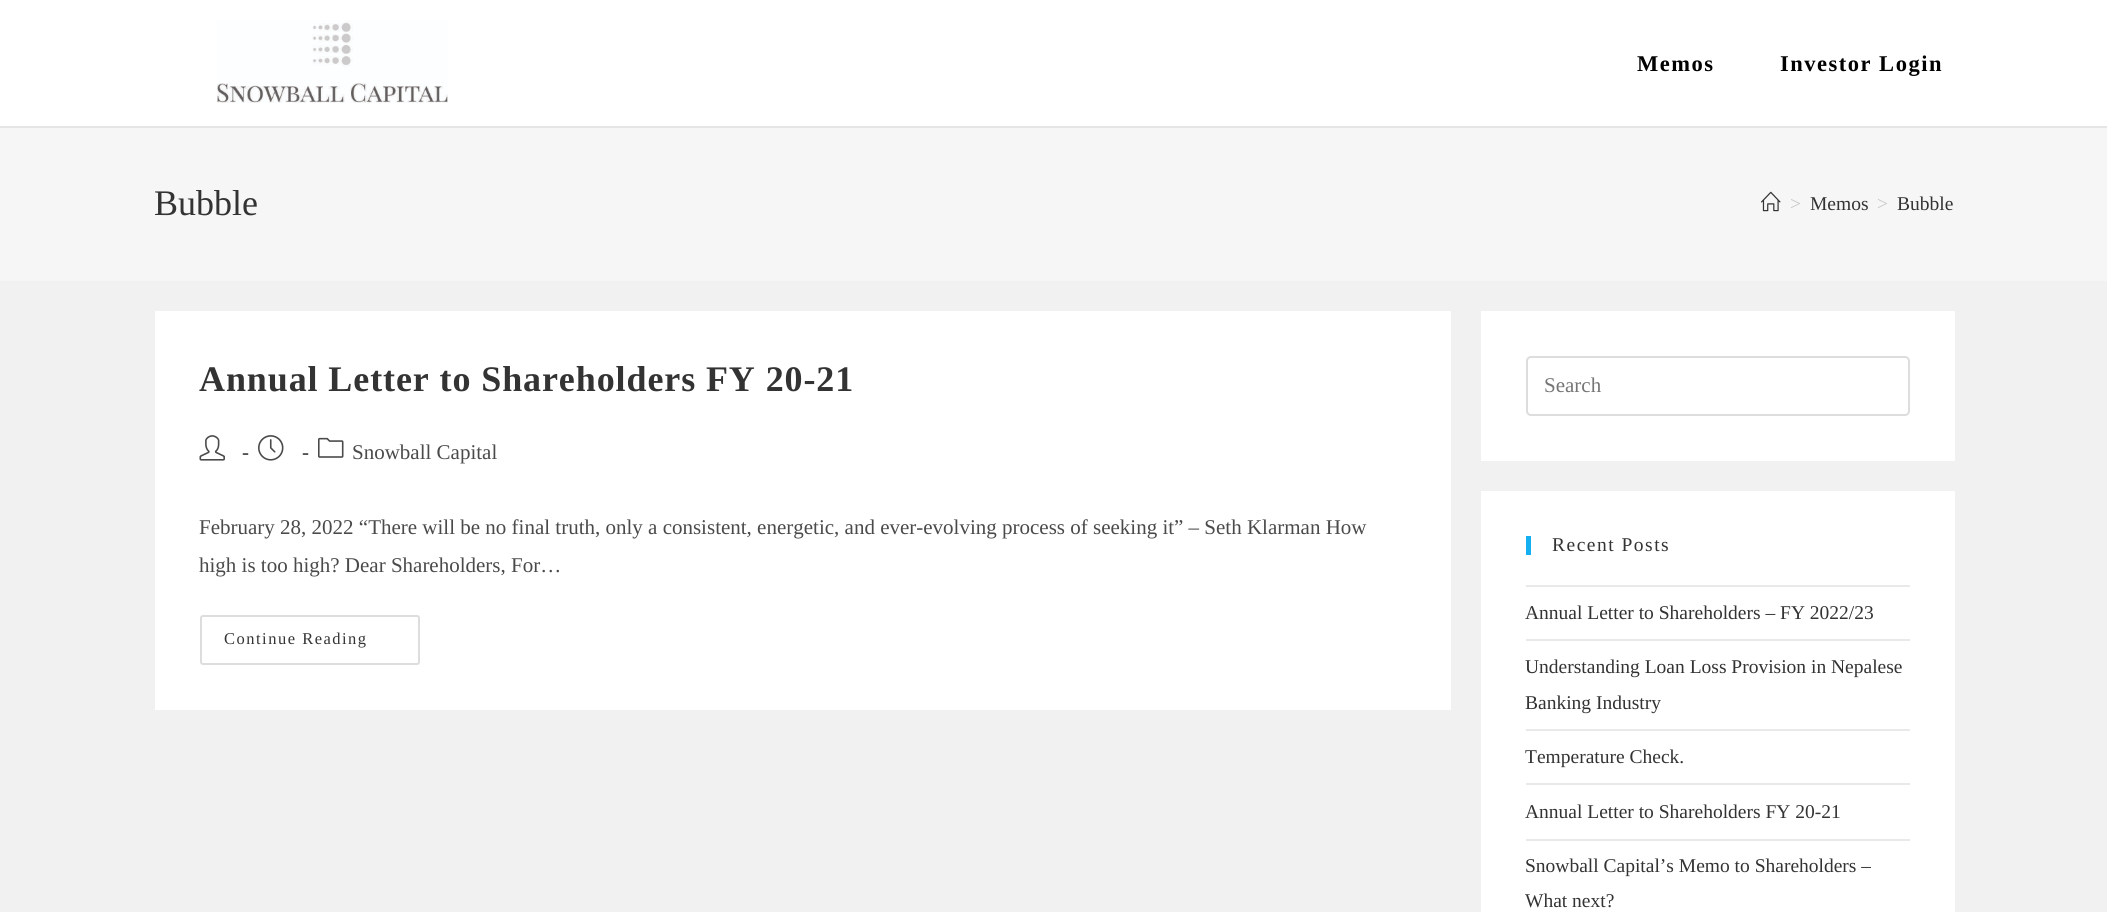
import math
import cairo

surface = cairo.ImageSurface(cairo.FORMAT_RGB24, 2107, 912)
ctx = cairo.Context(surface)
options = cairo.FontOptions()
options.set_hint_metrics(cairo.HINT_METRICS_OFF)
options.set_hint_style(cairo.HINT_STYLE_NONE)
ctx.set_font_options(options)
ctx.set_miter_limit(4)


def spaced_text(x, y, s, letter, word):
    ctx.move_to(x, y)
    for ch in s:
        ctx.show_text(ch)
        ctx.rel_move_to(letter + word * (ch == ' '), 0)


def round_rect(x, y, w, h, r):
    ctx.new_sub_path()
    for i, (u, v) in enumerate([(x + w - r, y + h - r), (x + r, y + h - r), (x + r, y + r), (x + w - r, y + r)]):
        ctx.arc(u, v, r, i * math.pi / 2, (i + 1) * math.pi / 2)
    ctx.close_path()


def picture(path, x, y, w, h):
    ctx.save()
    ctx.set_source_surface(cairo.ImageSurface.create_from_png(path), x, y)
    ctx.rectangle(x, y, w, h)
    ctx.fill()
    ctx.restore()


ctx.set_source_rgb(0.945, 0.945, 0.945)
ctx.paint()
ctx.set_source_rgb(1, 1, 1)
ctx.rectangle(0, 0, 2107, 126)
ctx.fill()
ctx.set_source_rgb(0.898, 0.898, 0.898)
ctx.rectangle(0, 126, 2107, 2)
ctx.fill()
picture("img1.png", 217, 20, 231, 83)
ctx.select_font_face("Liberation Serif", cairo.FONT_SLANT_NORMAL, cairo.FONT_WEIGHT_BOLD)
ctx.set_font_size(22.5)
ctx.set_source_rgb(0, 0, 0)
spaced_text(1637, 71, "Memos", 1.5, 0)
spaced_text(1780, 71, "Investor Login", 1.5, 0)
ctx.set_source_rgb(0.961, 0.961, 0.961)
ctx.rectangle(0, 128, 2107, 153)
ctx.fill()
ctx.select_font_face("Liberation Serif")
ctx.set_font_size(36)
ctx.set_source_rgb(0.2, 0.2, 0.2)
ctx.move_to(154, 215)
ctx.show_text("Bubble")
picture("img2.png", 1761, 191, 20, 21)
ctx.set_font_size(19.5)
ctx.set_source_rgb(0.776, 0.776, 0.776)
ctx.move_to(1790, 210)
ctx.show_text(">")
ctx.set_source_rgb(0.2, 0.2, 0.2)
ctx.move_to(1810, 210)
ctx.show_text("Memos")
ctx.set_source_rgb(0.776, 0.776, 0.776)
ctx.move_to(1877, 210)
ctx.show_text(">")
ctx.set_source_rgb(0.2, 0.2, 0.2)
ctx.move_to(1897, 210)
ctx.show_text("Bubble")
ctx.set_source_rgb(1, 1, 1)
ctx.rectangle(155, 311, 1296, 399)
ctx.fill()
ctx.select_font_face("Liberation Serif", cairo.FONT_SLANT_NORMAL, cairo.FONT_WEIGHT_BOLD)
ctx.set_font_size(36)
ctx.set_source_rgb(0.2, 0.2, 0.2)
spaced_text(199, 391, "Annual Letter to Shareholders FY 20-21", 0.9, 0)
picture("img3.png", 199, 435, 26, 26)
ctx.set_font_size(21)
ctx.set_source_rgb(0.29, 0.29, 0.29)
ctx.move_to(242, 459)
ctx.show_text("-")
picture("img4.png", 258, 435, 26, 26)
ctx.move_to(302, 459)
ctx.show_text("-")
picture("img5.png", 318, 437, 26, 21)
ctx.select_font_face("Liberation Serif")
ctx.move_to(352, 459)
ctx.show_text("Snowball Capital")
ctx.move_to(199, 534)
ctx.show_text("February 28, 2022 “There will be no final truth, only a consistent, energetic, and ever-evolving process of seeking it” – Seth Klarman How")
ctx.move_to(199, 572)
ctx.show_text("high is too high? Dear Shareholders, For…")
round_rect(201, 616, 218, 48, 2)
ctx.set_source_rgb(0.867, 0.867, 0.867)
ctx.stroke()
ctx.set_font_size(16.5)
ctx.set_source_rgb(0.2, 0.2, 0.2)
spaced_text(224, 644, "Continue Reading", 1.5, 0)
ctx.set_source_rgb(1, 1, 1)
ctx.rectangle(1481, 311, 474, 150)
ctx.fill()
round_rect(1527, 357, 382, 58, 4)
ctx.set_source_rgb(0.867, 0.867, 0.867)
ctx.stroke()
ctx.set_font_size(21)
ctx.set_source_rgb(0.459, 0.459, 0.459)
ctx.move_to(1544, 392)
ctx.show_text("Search")
ctx.set_source_rgb(1, 1, 1)
ctx.rectangle(1481, 491, 474, 421)
ctx.fill()
ctx.set_source_rgb(0.075, 0.686, 0.941)
ctx.rectangle(1526, 536, 5, 19)
ctx.fill()
ctx.set_font_size(19.5)
ctx.set_source_rgb(0.2, 0.2, 0.2)
spaced_text(1552, 551, "Recent Posts", 1.5, 0)
ctx.set_source_rgb(0.914, 0.914, 0.914)
ctx.rectangle(1526, 585, 384, 2)
ctx.fill()
ctx.rectangle(1526, 639, 384, 2)
ctx.fill()
ctx.set_source_rgb(0.2, 0.2, 0.2)
ctx.move_to(1525, 619)
ctx.show_text("Annual Letter to Shareholders – FY 2022/23")
ctx.set_source_rgb(0.914, 0.914, 0.914)
ctx.rectangle(1526, 729, 384, 2)
ctx.fill()
ctx.set_source_rgb(0.2, 0.2, 0.2)
ctx.move_to(1525, 673)
ctx.show_text("Understanding Loan Loss Provision in Nepalese")
ctx.move_to(1525, 709)
ctx.show_text("Banking Industry")
ctx.set_source_rgb(0.914, 0.914, 0.914)
ctx.rectangle(1526, 783, 384, 2)
ctx.fill()
ctx.set_source_rgb(0.2, 0.2, 0.2)
ctx.move_to(1525, 763)
ctx.show_text("Temperature Check.")
ctx.set_source_rgb(0.914, 0.914, 0.914)
ctx.rectangle(1526, 839, 384, 2)
ctx.fill()
ctx.set_source_rgb(0.2, 0.2, 0.2)
ctx.move_to(1525, 818)
ctx.show_text("Annual Letter to Shareholders FY 20-21")
ctx.move_to(1525, 872)
ctx.show_text("Snowball Capital’s Memo to Shareholders –")
ctx.move_to(1525, 907)
ctx.show_text("What next?")
surface.write_to_png("page.png")
